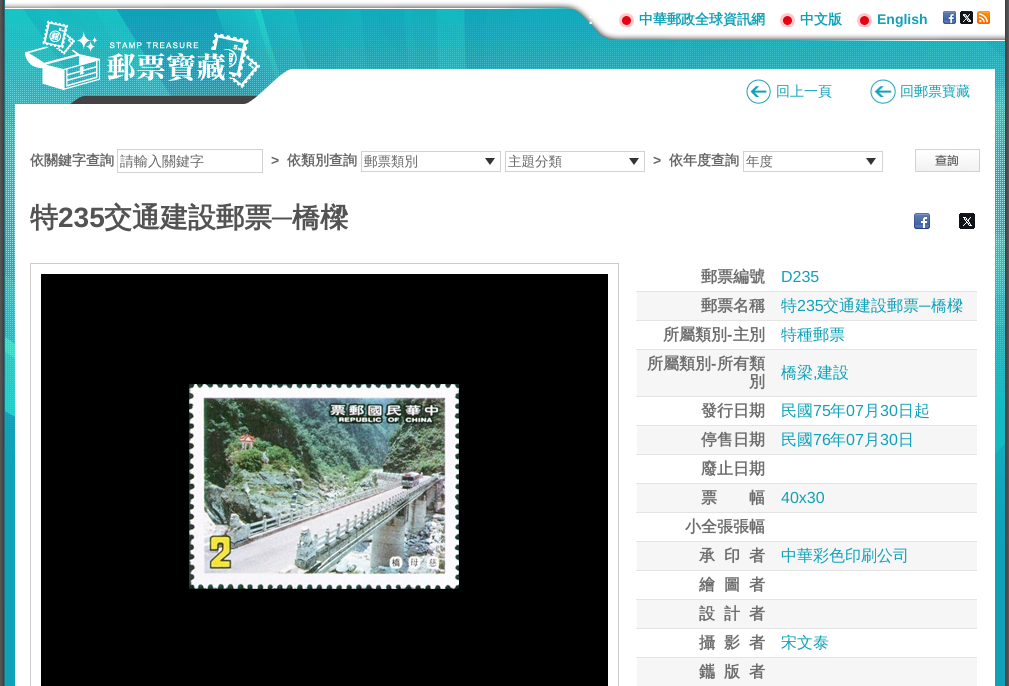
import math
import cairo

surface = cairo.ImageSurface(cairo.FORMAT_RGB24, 1009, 686)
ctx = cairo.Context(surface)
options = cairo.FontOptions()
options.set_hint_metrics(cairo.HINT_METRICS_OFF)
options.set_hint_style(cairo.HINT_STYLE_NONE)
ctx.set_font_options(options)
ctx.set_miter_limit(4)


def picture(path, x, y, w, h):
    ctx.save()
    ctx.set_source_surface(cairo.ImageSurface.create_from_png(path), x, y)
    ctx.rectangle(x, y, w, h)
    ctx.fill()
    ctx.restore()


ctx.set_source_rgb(1, 1, 1)
ctx.paint()
picture("img1.png", 0, 0, 1009, 686)
ctx.set_source_rgb(0.059, 0.631, 0.722)
ctx.rectangle(1004, 603, 1, 83)
ctx.fill()
picture("img2.png", 5, 8, 1000, 595)
picture("img4.png", 5, 0, 1000, 41)
picture("img9.png", 15, 69, 980, 47)
picture("img3.png", 25, 20, 235, 70)
ctx.select_font_face("Liberation Sans", cairo.FONT_SLANT_NORMAL, cairo.FONT_WEIGHT_BOLD)
ctx.set_font_size(16)
ctx.set_source_rgb(1, 1, 1)
ctx.move_to(588, 24)
ctx.show_text(":")
picture("img5.png", 619, 13, 15, 14)
ctx.select_font_face("WenQuanYi Zen Hei", cairo.FONT_SLANT_NORMAL, cairo.FONT_WEIGHT_BOLD)
ctx.set_font_size(14)
ctx.set_source_rgb(0.059, 0.631, 0.722)
ctx.move_to(639, 24)
ctx.show_text("中華郵政全球資訊網")
picture("img5.png", 780, 13, 15, 14)
ctx.move_to(800, 24)
ctx.show_text("中文版")
picture("img5.png", 857, 13, 15, 14)
ctx.select_font_face("Liberation Sans", cairo.FONT_SLANT_NORMAL, cairo.FONT_WEIGHT_BOLD)
ctx.move_to(877, 24)
ctx.show_text("English")
picture("img6.png", 943, 11, 13, 13)
picture("img7.png", 960, 11, 13, 13)
picture("img8.png", 977, 11, 13, 13)
picture("img10.png", 746, 79, 25, 25)
ctx.select_font_face("WenQuanYi Zen Hei Medium")
ctx.move_to(776, 96)
ctx.show_text("回上一頁")
picture("img11.png", 870, 79, 26, 25)
ctx.move_to(900, 96)
ctx.show_text("回郵票寶藏")
ctx.set_source_rgb(1, 1, 1)
ctx.rectangle(15, 116, 980, 570)
ctx.fill()
ctx.select_font_face("WenQuanYi Zen Hei", cairo.FONT_SLANT_NORMAL, cairo.FONT_WEIGHT_BOLD)
ctx.set_source_rgb(0.4, 0.4, 0.4)
ctx.move_to(30, 165)
ctx.show_text("依關鍵字查詢")
ctx.rectangle(117.5, 149.5, 145, 23)
ctx.set_source_rgb(0.824, 0.824, 0.824)
ctx.set_line_width(1)
ctx.stroke()
ctx.select_font_face("WenQuanYi Zen Hei Medium")
ctx.set_source_rgb(0.4, 0.4, 0.4)
ctx.move_to(120, 166)
ctx.show_text("請輸入關鍵字")
ctx.select_font_face("Liberation Sans", cairo.FONT_SLANT_NORMAL, cairo.FONT_WEIGHT_BOLD)
ctx.move_to(271, 165)
ctx.show_text(">")
ctx.select_font_face("WenQuanYi Zen Hei", cairo.FONT_SLANT_NORMAL, cairo.FONT_WEIGHT_BOLD)
ctx.move_to(287, 165)
ctx.show_text("依類別查詢")
picture("img12.png", 485, 158, 10, 7)
ctx.rectangle(361.5, 151.5, 139, 20)
ctx.set_source_rgb(0.824, 0.824, 0.824)
ctx.stroke()
ctx.select_font_face("WenQuanYi Zen Hei Medium")
ctx.set_font_size(13.5)
ctx.set_source_rgb(0.4, 0.4, 0.4)
ctx.move_to(364, 166)
ctx.show_text("郵票類別")
picture("img12.png", 629, 158, 10, 7)
ctx.rectangle(505.5, 151.5, 139, 20)
ctx.set_source_rgb(0.824, 0.824, 0.824)
ctx.stroke()
ctx.set_source_rgb(0.4, 0.4, 0.4)
ctx.move_to(508, 166)
ctx.show_text("主題分類")
ctx.select_font_face("Liberation Sans", cairo.FONT_SLANT_NORMAL, cairo.FONT_WEIGHT_BOLD)
ctx.set_font_size(14)
ctx.move_to(653, 165)
ctx.show_text(">")
ctx.select_font_face("WenQuanYi Zen Hei", cairo.FONT_SLANT_NORMAL, cairo.FONT_WEIGHT_BOLD)
ctx.move_to(669, 165)
ctx.show_text("依年度查詢")
picture("img12.png", 866, 158, 10, 7)
ctx.rectangle(743.5, 151.5, 139, 20)
ctx.set_source_rgb(0.824, 0.824, 0.824)
ctx.stroke()
ctx.select_font_face("WenQuanYi Zen Hei Medium")
ctx.set_font_size(13.5)
ctx.set_source_rgb(0.4, 0.4, 0.4)
ctx.move_to(746, 166)
ctx.show_text("年度")
picture("img13.png", 915, 149, 65, 23)
ctx.select_font_face("WenQuanYi Zen Hei", cairo.FONT_SLANT_NORMAL, cairo.FONT_WEIGHT_BOLD)
ctx.set_font_size(28)
ctx.set_source_rgb(0.325, 0.325, 0.325)
ctx.move_to(30, 227)
ctx.show_text("特")
ctx.select_font_face("Liberation Sans", cairo.FONT_SLANT_NORMAL, cairo.FONT_WEIGHT_BOLD)
ctx.move_to(58, 227)
ctx.show_text("235")
ctx.select_font_face("WenQuanYi Zen Hei", cairo.FONT_SLANT_NORMAL, cairo.FONT_WEIGHT_BOLD)
ctx.move_to(104, 227)
ctx.show_text("交通建設郵票")
ctx.select_font_face("Liberation Sans", cairo.FONT_SLANT_NORMAL, cairo.FONT_WEIGHT_BOLD)
ctx.move_to(272, 227)
ctx.show_text("─")
ctx.select_font_face("WenQuanYi Zen Hei", cairo.FONT_SLANT_NORMAL, cairo.FONT_WEIGHT_BOLD)
ctx.move_to(292, 227)
ctx.show_text("橋樑")
picture("img14.png", 914, 213, 16, 16)
picture("img15.png", 959, 213, 16, 16)
ctx.rectangle(30.5, 263.5, 588, 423)
ctx.set_source_rgb(0.8, 0.8, 0.8)
ctx.stroke()
ctx.set_source_rgb(0, 0, 0)
ctx.rectangle(41, 274, 567, 412)
ctx.fill()
picture("img16.png", 189, 384, 270, 205)
ctx.set_font_size(16)
ctx.set_source_rgb(0.435, 0.431, 0.431)
ctx.move_to(701, 282)
ctx.show_text("郵票編號")
ctx.set_source_rgb(0.894, 0.894, 0.894)
ctx.rectangle(636, 291, 341, 1)
ctx.fill()
ctx.select_font_face("Liberation Sans")
ctx.set_source_rgb(0.059, 0.631, 0.722)
ctx.move_to(781, 282)
ctx.show_text("D235")
ctx.set_source_rgb(0.961, 0.961, 0.961)
ctx.rectangle(637, 292, 340, 28)
ctx.fill()
ctx.select_font_face("WenQuanYi Zen Hei", cairo.FONT_SLANT_NORMAL, cairo.FONT_WEIGHT_BOLD)
ctx.set_source_rgb(0.435, 0.431, 0.431)
ctx.move_to(701, 311)
ctx.show_text("郵票名稱")
ctx.set_source_rgb(0.894, 0.894, 0.894)
ctx.rectangle(636, 320, 341, 1)
ctx.fill()
ctx.select_font_face("WenQuanYi Zen Hei Medium")
ctx.set_source_rgb(0.059, 0.631, 0.722)
ctx.move_to(781, 311)
ctx.show_text("特")
ctx.select_font_face("Liberation Sans")
ctx.move_to(797, 311)
ctx.show_text("235")
ctx.select_font_face("WenQuanYi Zen Hei Medium")
ctx.move_to(823, 311)
ctx.show_text("交通建設郵票")
ctx.select_font_face("Liberation Sans")
ctx.move_to(919, 311)
ctx.show_text("─")
ctx.select_font_face("WenQuanYi Zen Hei Medium")
ctx.move_to(931, 311)
ctx.show_text("橋樑")
ctx.select_font_face("WenQuanYi Zen Hei", cairo.FONT_SLANT_NORMAL, cairo.FONT_WEIGHT_BOLD)
ctx.set_source_rgb(0.435, 0.431, 0.431)
ctx.move_to(663, 340)
ctx.show_text("所屬類別")
ctx.select_font_face("Liberation Sans", cairo.FONT_SLANT_NORMAL, cairo.FONT_WEIGHT_BOLD)
ctx.move_to(727, 340)
ctx.show_text("-")
ctx.select_font_face("WenQuanYi Zen Hei", cairo.FONT_SLANT_NORMAL, cairo.FONT_WEIGHT_BOLD)
ctx.move_to(733, 340)
ctx.show_text("主別")
ctx.set_source_rgb(0.894, 0.894, 0.894)
ctx.rectangle(636, 349, 341, 1)
ctx.fill()
ctx.select_font_face("WenQuanYi Zen Hei Medium")
ctx.set_source_rgb(0.059, 0.631, 0.722)
ctx.move_to(781, 340)
ctx.show_text("特種郵票")
ctx.set_source_rgb(0.961, 0.961, 0.961)
ctx.rectangle(637, 350, 340, 46)
ctx.fill()
ctx.select_font_face("WenQuanYi Zen Hei", cairo.FONT_SLANT_NORMAL, cairo.FONT_WEIGHT_BOLD)
ctx.set_source_rgb(0.435, 0.431, 0.431)
ctx.move_to(647, 369)
ctx.show_text("所屬類別")
ctx.select_font_face("Liberation Sans", cairo.FONT_SLANT_NORMAL, cairo.FONT_WEIGHT_BOLD)
ctx.move_to(711, 369)
ctx.show_text("-")
ctx.select_font_face("WenQuanYi Zen Hei", cairo.FONT_SLANT_NORMAL, cairo.FONT_WEIGHT_BOLD)
ctx.move_to(717, 369)
ctx.show_text("所有類")
ctx.move_to(749, 387)
ctx.show_text("別")
ctx.set_source_rgb(0.894, 0.894, 0.894)
ctx.rectangle(636, 396, 341, 1)
ctx.fill()
ctx.select_font_face("WenQuanYi Zen Hei Medium")
ctx.set_source_rgb(0.059, 0.631, 0.722)
ctx.move_to(781, 378)
ctx.show_text("橋梁")
ctx.select_font_face("Liberation Sans")
ctx.move_to(813, 378)
ctx.show_text(",")
ctx.select_font_face("WenQuanYi Zen Hei Medium")
ctx.move_to(817, 378)
ctx.show_text("建設")
ctx.select_font_face("WenQuanYi Zen Hei", cairo.FONT_SLANT_NORMAL, cairo.FONT_WEIGHT_BOLD)
ctx.set_source_rgb(0.435, 0.431, 0.431)
ctx.move_to(701, 416)
ctx.show_text("發行日期")
ctx.set_source_rgb(0.894, 0.894, 0.894)
ctx.rectangle(636, 425, 341, 1)
ctx.fill()
ctx.select_font_face("WenQuanYi Zen Hei Medium")
ctx.set_source_rgb(0.059, 0.631, 0.722)
ctx.move_to(781, 416)
ctx.show_text("民國")
ctx.select_font_face("Liberation Sans")
ctx.move_to(813, 416)
ctx.show_text("75")
ctx.select_font_face("WenQuanYi Zen Hei Medium")
ctx.move_to(830, 416)
ctx.show_text("年")
ctx.select_font_face("Liberation Sans")
ctx.move_to(846, 416)
ctx.show_text("07")
ctx.select_font_face("WenQuanYi Zen Hei Medium")
ctx.move_to(864, 416)
ctx.show_text("月")
ctx.select_font_face("Liberation Sans")
ctx.move_to(880, 416)
ctx.show_text("30")
ctx.select_font_face("WenQuanYi Zen Hei Medium")
ctx.move_to(898, 416)
ctx.show_text("日起")
ctx.set_source_rgb(0.961, 0.961, 0.961)
ctx.rectangle(637, 426, 340, 28)
ctx.fill()
ctx.select_font_face("WenQuanYi Zen Hei", cairo.FONT_SLANT_NORMAL, cairo.FONT_WEIGHT_BOLD)
ctx.set_source_rgb(0.435, 0.431, 0.431)
ctx.move_to(701, 445)
ctx.show_text("停售日期")
ctx.set_source_rgb(0.894, 0.894, 0.894)
ctx.rectangle(636, 454, 341, 1)
ctx.fill()
ctx.select_font_face("WenQuanYi Zen Hei Medium")
ctx.set_source_rgb(0.059, 0.631, 0.722)
ctx.move_to(781, 445)
ctx.show_text("民國")
ctx.select_font_face("Liberation Sans")
ctx.move_to(813, 445)
ctx.show_text("76")
ctx.select_font_face("WenQuanYi Zen Hei Medium")
ctx.move_to(830, 445)
ctx.show_text("年")
ctx.select_font_face("Liberation Sans")
ctx.move_to(846, 445)
ctx.show_text("07")
ctx.select_font_face("WenQuanYi Zen Hei Medium")
ctx.move_to(864, 445)
ctx.show_text("月")
ctx.select_font_face("Liberation Sans")
ctx.move_to(880, 445)
ctx.show_text("30")
ctx.select_font_face("WenQuanYi Zen Hei Medium")
ctx.move_to(898, 445)
ctx.show_text("日")
ctx.select_font_face("WenQuanYi Zen Hei", cairo.FONT_SLANT_NORMAL, cairo.FONT_WEIGHT_BOLD)
ctx.set_source_rgb(0.435, 0.431, 0.431)
ctx.move_to(701, 474)
ctx.show_text("廢止日期")
ctx.set_source_rgb(0.894, 0.894, 0.894)
ctx.rectangle(636, 483, 341, 1)
ctx.fill()
ctx.set_source_rgb(0.961, 0.961, 0.961)
ctx.rectangle(637, 484, 340, 28)
ctx.fill()
ctx.set_source_rgb(0.435, 0.431, 0.431)
ctx.move_to(701, 503)
ctx.show_text("票　　幅")
ctx.set_source_rgb(0.894, 0.894, 0.894)
ctx.rectangle(636, 512, 341, 1)
ctx.fill()
ctx.select_font_face("Liberation Sans")
ctx.set_source_rgb(0.059, 0.631, 0.722)
ctx.move_to(781, 503)
ctx.show_text("40x30")
ctx.select_font_face("WenQuanYi Zen Hei", cairo.FONT_SLANT_NORMAL, cairo.FONT_WEIGHT_BOLD)
ctx.set_source_rgb(0.435, 0.431, 0.431)
ctx.move_to(685, 532)
ctx.show_text("小全張張幅")
ctx.set_source_rgb(0.894, 0.894, 0.894)
ctx.rectangle(636, 541, 341, 1)
ctx.fill()
ctx.set_source_rgb(0.961, 0.961, 0.961)
ctx.rectangle(637, 542, 340, 28)
ctx.fill()
ctx.set_source_rgb(0.435, 0.431, 0.431)
ctx.move_to(699, 561)
ctx.show_text("承")
ctx.move_to(724, 561)
ctx.show_text("印")
ctx.move_to(749, 561)
ctx.show_text("者")
ctx.set_source_rgb(0.894, 0.894, 0.894)
ctx.rectangle(636, 570, 341, 1)
ctx.fill()
ctx.select_font_face("WenQuanYi Zen Hei Medium")
ctx.set_source_rgb(0.059, 0.631, 0.722)
ctx.move_to(781, 561)
ctx.show_text("中華彩色印刷公司")
ctx.select_font_face("WenQuanYi Zen Hei", cairo.FONT_SLANT_NORMAL, cairo.FONT_WEIGHT_BOLD)
ctx.set_source_rgb(0.435, 0.431, 0.431)
ctx.move_to(699, 590)
ctx.show_text("繪")
ctx.move_to(724, 590)
ctx.show_text("圖")
ctx.move_to(749, 590)
ctx.show_text("者")
ctx.set_source_rgb(0.894, 0.894, 0.894)
ctx.rectangle(636, 599, 341, 1)
ctx.fill()
ctx.set_source_rgb(0.961, 0.961, 0.961)
ctx.rectangle(637, 600, 340, 28)
ctx.fill()
ctx.set_source_rgb(0.435, 0.431, 0.431)
ctx.move_to(699, 619)
ctx.show_text("設")
ctx.move_to(724, 619)
ctx.show_text("計")
ctx.move_to(749, 619)
ctx.show_text("者")
ctx.set_source_rgb(0.894, 0.894, 0.894)
ctx.rectangle(636, 628, 341, 1)
ctx.fill()
ctx.set_source_rgb(0.435, 0.431, 0.431)
ctx.move_to(699, 648)
ctx.show_text("攝")
ctx.move_to(724, 648)
ctx.show_text("影")
ctx.move_to(749, 648)
ctx.show_text("者")
ctx.set_source_rgb(0.894, 0.894, 0.894)
ctx.rectangle(636, 657, 341, 1)
ctx.fill()
ctx.select_font_face("WenQuanYi Zen Hei Medium")
ctx.set_source_rgb(0.059, 0.631, 0.722)
ctx.move_to(781, 648)
ctx.show_text("宋文泰")
ctx.set_source_rgb(0.961, 0.961, 0.961)
ctx.rectangle(637, 658, 340, 28)
ctx.fill()
ctx.select_font_face("WenQuanYi Zen Hei", cairo.FONT_SLANT_NORMAL, cairo.FONT_WEIGHT_BOLD)
ctx.set_source_rgb(0.435, 0.431, 0.431)
ctx.move_to(699, 677)
ctx.show_text("鑴")
ctx.move_to(724, 677)
ctx.show_text("版")
ctx.move_to(749, 677)
ctx.show_text("者")
surface.write_to_png("page.png")
